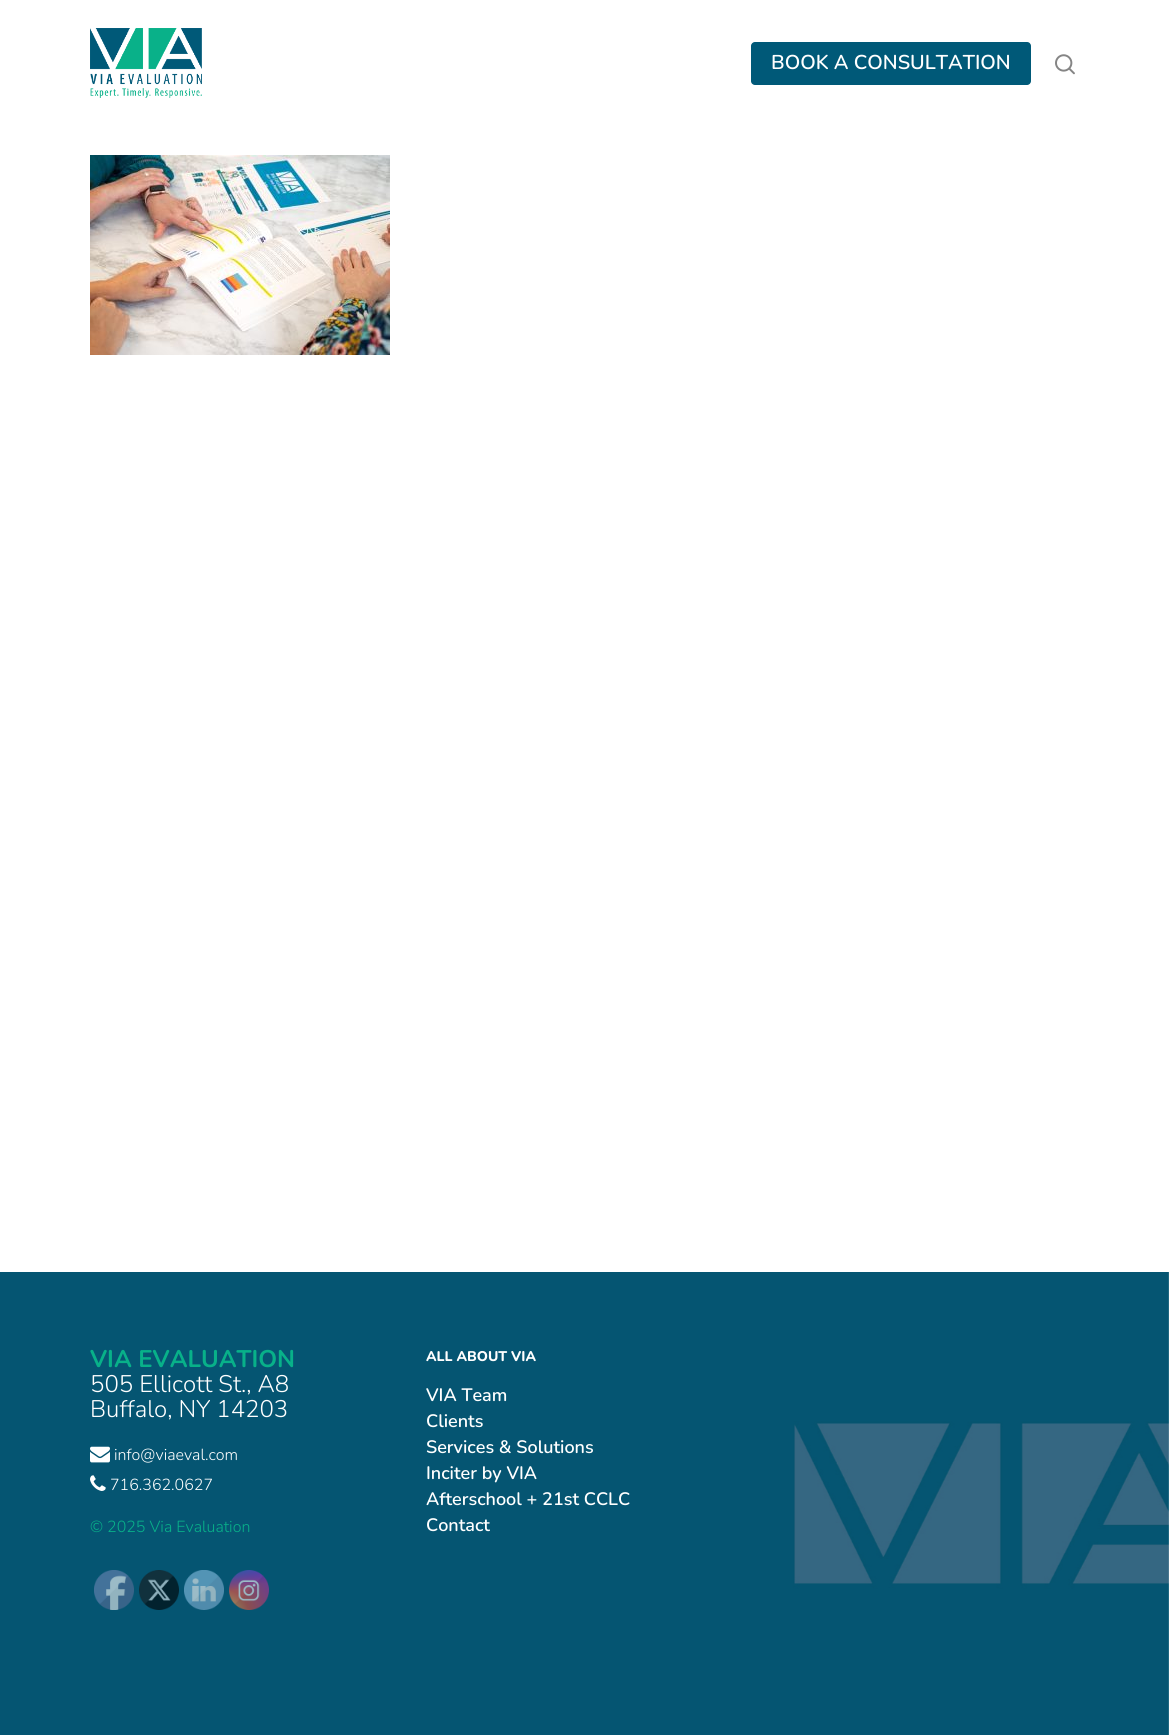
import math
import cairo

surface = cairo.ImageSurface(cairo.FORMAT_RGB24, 1169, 1735)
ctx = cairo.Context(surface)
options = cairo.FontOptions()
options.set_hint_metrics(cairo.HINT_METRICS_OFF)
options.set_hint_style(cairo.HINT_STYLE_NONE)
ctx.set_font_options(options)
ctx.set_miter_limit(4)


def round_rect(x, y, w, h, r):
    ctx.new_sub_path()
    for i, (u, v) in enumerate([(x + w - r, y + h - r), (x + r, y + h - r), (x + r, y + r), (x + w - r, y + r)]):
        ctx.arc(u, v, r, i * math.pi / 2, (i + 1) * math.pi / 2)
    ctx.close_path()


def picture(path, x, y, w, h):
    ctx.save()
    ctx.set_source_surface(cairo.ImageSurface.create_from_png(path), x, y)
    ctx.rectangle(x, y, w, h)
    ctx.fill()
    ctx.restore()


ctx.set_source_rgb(1, 1, 1)
ctx.paint()
picture("img1.png", 90, 28, 112, 70)
ctx.set_source_rgb(0, 0.349, 0.471)
round_rect(751, 42, 280, 43, 4)
ctx.fill()
ctx.select_font_face("Nunito SemiBold")
ctx.set_font_size(20)
ctx.set_source_rgb(1, 1, 1)
ctx.move_to(771, 69)
ctx.show_text("BOOK A CONSULTATION")
picture("img2.png", 1055, 54, 20, 21)
picture("img3.png", 90, 155, 300, 200)
picture("img4.png", 0, 1272, 1169, 463)
ctx.select_font_face("Nunito", cairo.FONT_SLANT_NORMAL, cairo.FONT_WEIGHT_BOLD)
ctx.set_font_size(24)
ctx.set_source_rgb(0.035, 0.694, 0.537)
ctx.move_to(90, 1367)
ctx.show_text("VIA EVALUATION")
ctx.select_font_face("Nunito Light")
ctx.set_source_rgb(1, 1, 1)
ctx.move_to(90, 1392)
ctx.show_text("505 Ellicott St., A8")
ctx.move_to(90, 1417)
ctx.show_text("Buffalo, NY 14203")
picture("img5.png", 90, 1446, 20, 17)
ctx.set_font_size(16)
ctx.move_to(114, 1460)
ctx.show_text("info@viaeval.com")
picture("img6.png", 90, 1475, 16, 16)
ctx.move_to(110, 1490)
ctx.show_text("716.362.0627")
ctx.set_source_rgb(0.035, 0.694, 0.537)
ctx.move_to(90, 1532)
ctx.show_text("© 2025 Via Evaluation")
picture("img7.png", 94, 1570, 40, 40)
picture("img8.png", 139, 1570, 40, 40)
picture("img9.png", 184, 1570, 40, 40)
picture("img10.png", 229, 1570, 40, 40)
ctx.select_font_face("Nunito ExtraBold")
ctx.set_font_size(14)
ctx.set_source_rgb(1, 1, 1)
ctx.move_to(426, 1361)
ctx.show_text("ALL ABOUT VIA")
ctx.select_font_face("Nunito SemiBold")
ctx.set_font_size(18)
ctx.move_to(426, 1401)
ctx.show_text("VIA Team")
ctx.move_to(426, 1427)
ctx.show_text("Clients")
ctx.move_to(426, 1453)
ctx.show_text("Services & Solutions")
ctx.move_to(426, 1479)
ctx.show_text("Inciter by VIA")
ctx.move_to(426, 1505)
ctx.show_text("Afterschool + 21st CCLC")
ctx.move_to(426, 1531)
ctx.show_text("Contact")
surface.write_to_png("page.png")
